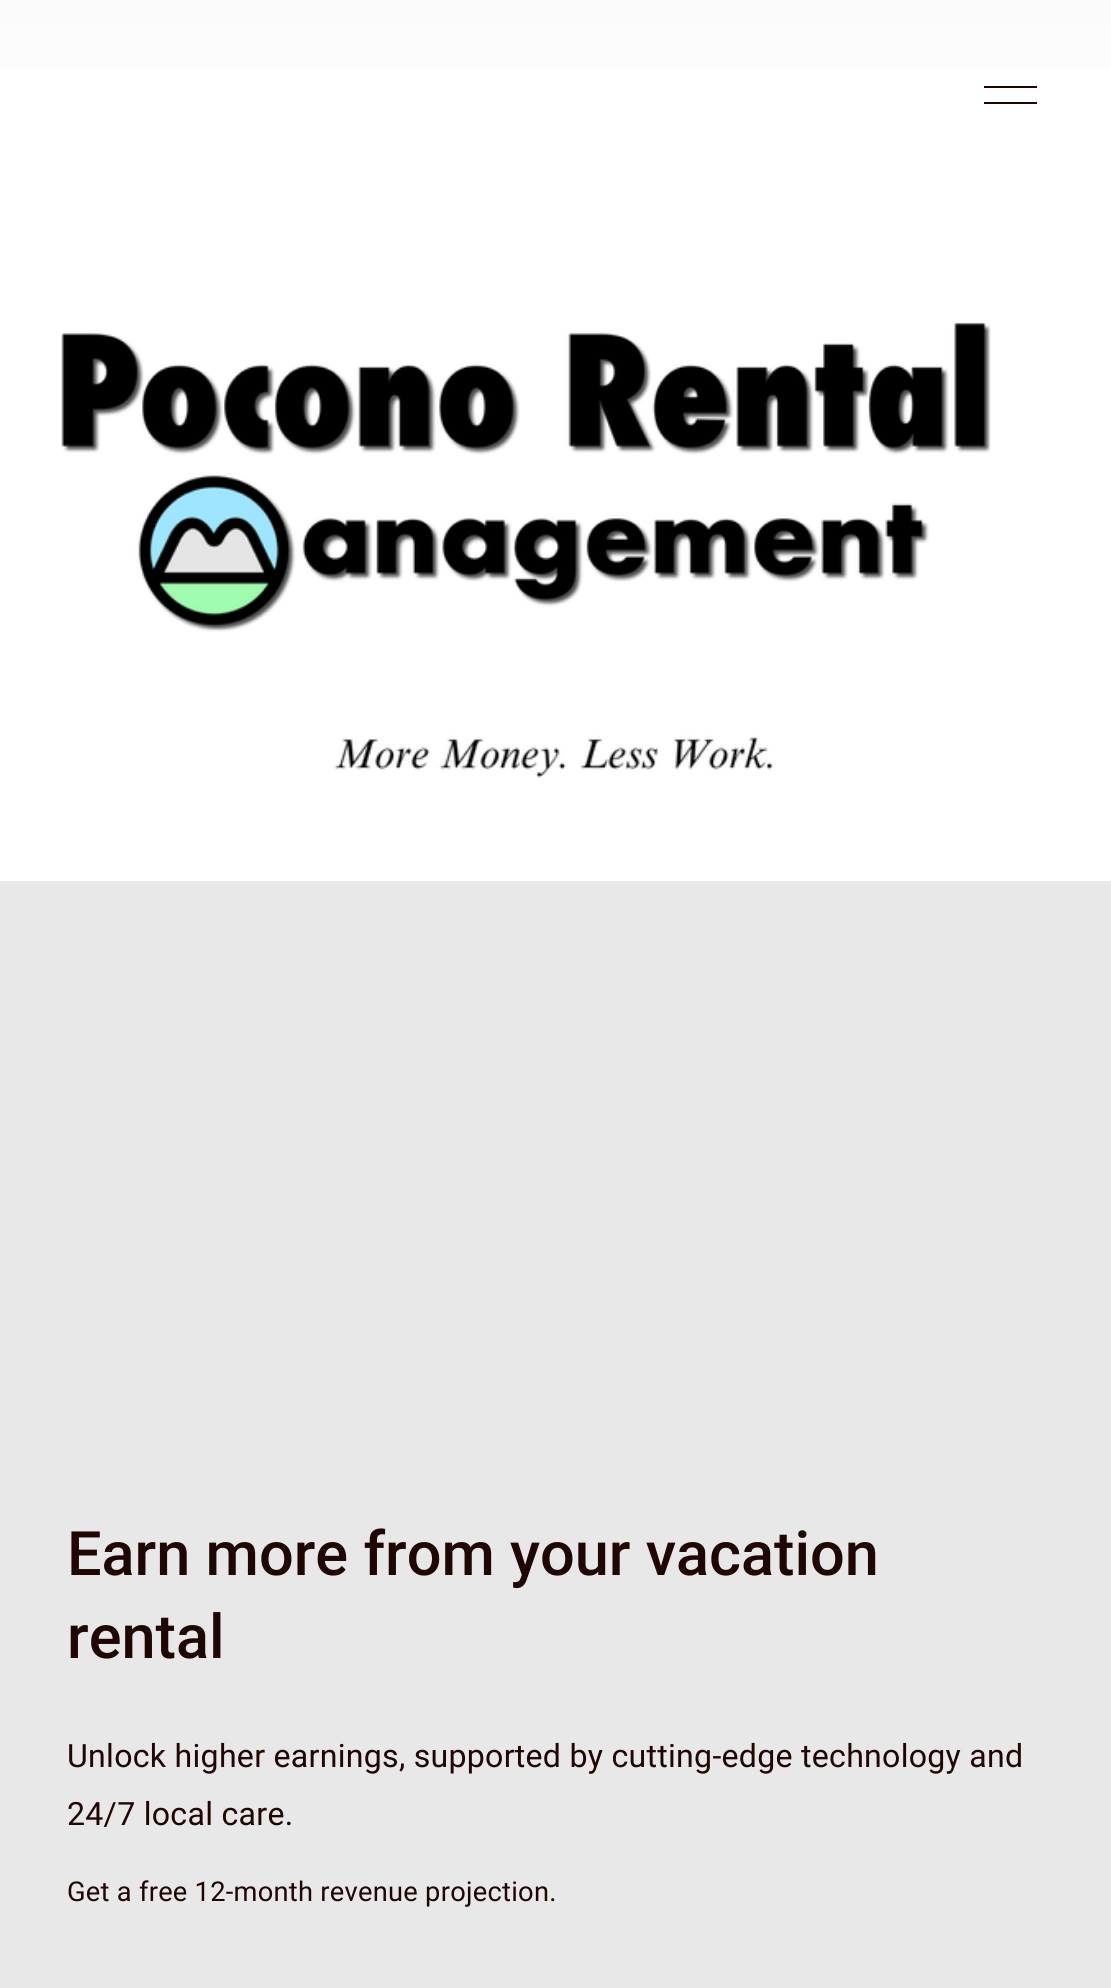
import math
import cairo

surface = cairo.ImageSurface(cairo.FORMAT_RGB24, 1111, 1988)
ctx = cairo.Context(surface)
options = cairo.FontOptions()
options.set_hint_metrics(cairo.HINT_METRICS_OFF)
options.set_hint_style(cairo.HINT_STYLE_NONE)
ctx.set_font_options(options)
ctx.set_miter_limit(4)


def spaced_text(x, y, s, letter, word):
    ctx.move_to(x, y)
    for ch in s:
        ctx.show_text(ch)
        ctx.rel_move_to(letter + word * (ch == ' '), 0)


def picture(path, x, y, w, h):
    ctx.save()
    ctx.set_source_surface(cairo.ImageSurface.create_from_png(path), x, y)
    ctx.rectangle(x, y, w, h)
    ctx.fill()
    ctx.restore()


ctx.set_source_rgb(1, 1, 1)
ctx.paint()
gradient = cairo.LinearGradient(556, 0, 556, 189)
gradient.add_color_stop_rgba(0, 0.984, 0.984, 0.984, 1)
gradient.add_color_stop_rgba(1, 1, 1, 1, 1)
ctx.set_source(gradient)
ctx.rectangle(0, 0, 1111, 71)
ctx.fill()
ctx.set_source_rgb(0.125, 0.024, 0.012)
ctx.rectangle(984, 86, 53, 2)
ctx.fill()
ctx.rectangle(984, 102, 53, 2)
ctx.fill()
picture("img1.png", 61, 322, 930, 456)
ctx.set_source_rgb(0.91, 0.91, 0.91)
ctx.rectangle(0, 881, 1111, 1107)
ctx.fill()
ctx.select_font_face("Roboto Medium")
ctx.set_font_size(61.25)
ctx.set_source_rgb(0.125, 0.024, 0.012)
ctx.move_to(67, 1575)
ctx.show_text("Earn more from your vacation")
ctx.move_to(67, 1658)
ctx.show_text("rental")
ctx.select_font_face("Roboto")
ctx.set_font_size(32.1)
spaced_text(67, 1767, "Unlock higher earnings, supported by cutting-edge technology and", 0.27, 0)
spaced_text(67, 1825, "24/7 local care.", 0.27, 0)
ctx.set_font_size(27.25)
spaced_text(67, 1901, "Get a free 12-month revenue projection.", 0.27, 0)
surface.write_to_png("page.png")
